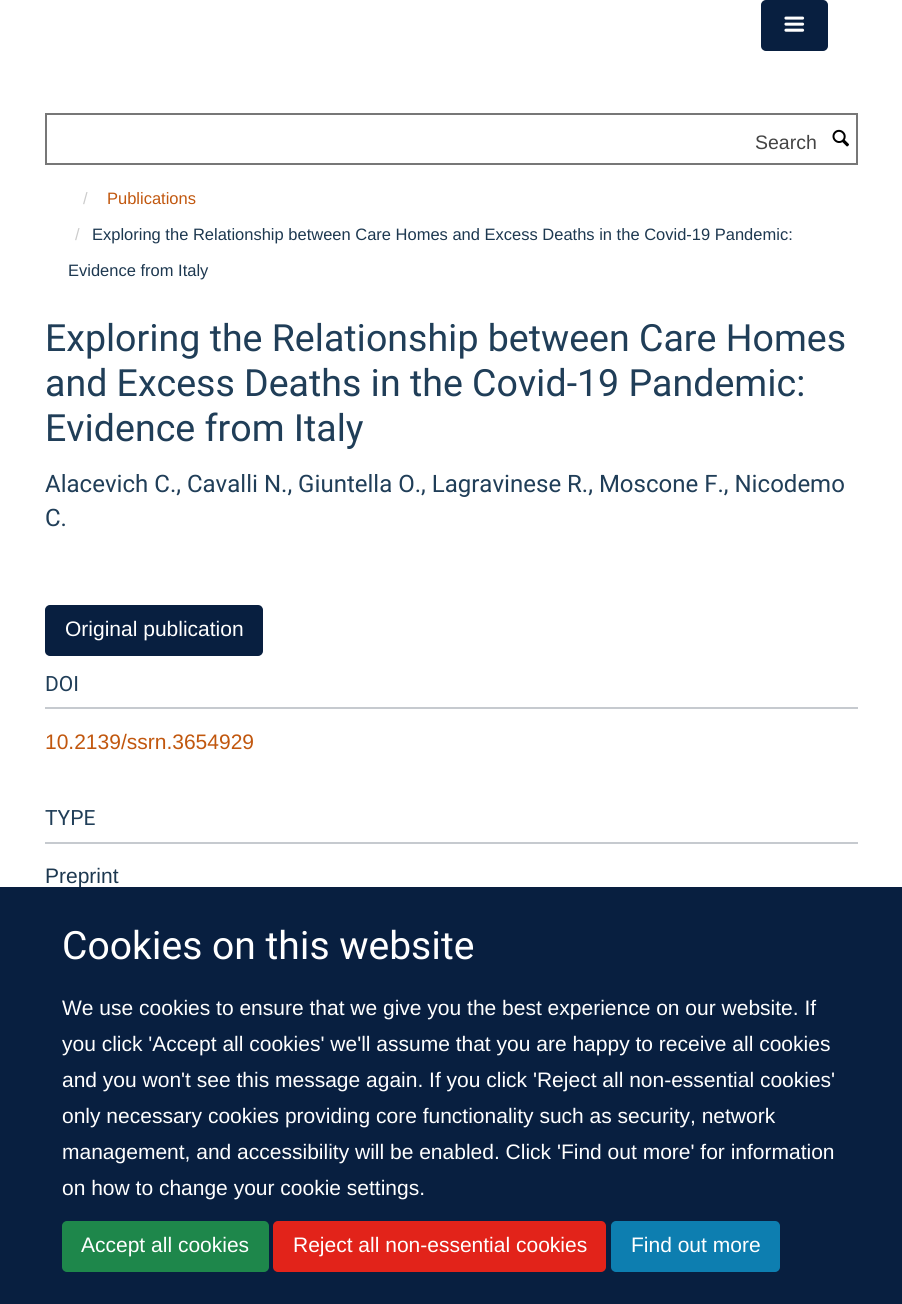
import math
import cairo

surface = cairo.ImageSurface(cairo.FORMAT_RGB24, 902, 1304)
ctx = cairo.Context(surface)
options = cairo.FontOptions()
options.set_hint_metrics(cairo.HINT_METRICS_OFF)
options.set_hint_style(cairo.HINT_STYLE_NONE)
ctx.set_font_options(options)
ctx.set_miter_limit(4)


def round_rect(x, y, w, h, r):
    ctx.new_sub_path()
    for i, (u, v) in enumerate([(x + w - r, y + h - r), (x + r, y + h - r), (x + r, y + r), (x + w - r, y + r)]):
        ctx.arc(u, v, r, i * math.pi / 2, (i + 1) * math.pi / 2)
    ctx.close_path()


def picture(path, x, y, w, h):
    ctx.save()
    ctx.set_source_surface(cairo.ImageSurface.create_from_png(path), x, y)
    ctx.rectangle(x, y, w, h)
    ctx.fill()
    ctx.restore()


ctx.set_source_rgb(1, 1, 1)
ctx.paint()
ctx.set_source_rgb(0.035, 0.122, 0.251)
round_rect(762, 1, 65, 49, 4)
ctx.fill_preserve()
ctx.stroke()
picture("img1.png", 784, 16, 21, 16)
ctx.rectangle(46, 114, 811, 50)
ctx.set_source_rgb(0.467, 0.467, 0.467)
ctx.stroke()
ctx.select_font_face("Liberation Sans")
ctx.set_font_size(19.5)
ctx.set_source_rgb(0.267, 0.267, 0.267)
ctx.move_to(755, 149)
ctx.show_text("Search")
picture("img2.png", 832, 129, 17, 18)
ctx.set_font_size(16.5)
ctx.set_source_rgb(0.8, 0.8, 0.8)
ctx.move_to(83, 204)
ctx.show_text("/")
ctx.set_source_rgb(0.757, 0.341, 0.055)
ctx.move_to(107, 204)
ctx.show_text("Publications")
ctx.set_source_rgb(0.8, 0.8, 0.8)
ctx.move_to(75, 240)
ctx.show_text("/")
ctx.set_source_rgb(0.114, 0.22, 0.314)
ctx.move_to(92, 240)
ctx.show_text("Exploring the Relationship between Care Homes and Excess Deaths in the Covid-19 Pandemic:")
ctx.move_to(68, 276)
ctx.show_text("Evidence from Italy")
ctx.select_font_face("Heebo")
ctx.set_font_size(37.5)
ctx.set_source_rgb(0.125, 0.243, 0.345)
ctx.move_to(45, 351)
ctx.show_text("Exploring the Relationship between Care Homes")
ctx.move_to(45, 396)
ctx.show_text("and Excess Deaths in the Covid-19 Pandemic:")
ctx.move_to(45, 441)
ctx.show_text("Evidence from Italy")
ctx.set_font_size(24)
ctx.move_to(45, 492)
ctx.show_text("Alacevich C., Cavalli N., Giuntella O., Lagravinese R., Moscone F., Nicodemo")
ctx.move_to(45, 526)
ctx.show_text("C.")
ctx.set_source_rgb(0.035, 0.122, 0.251)
round_rect(46, 606, 216, 49, 4)
ctx.fill_preserve()
ctx.stroke()
ctx.select_font_face("Liberation Sans")
ctx.set_font_size(21)
ctx.set_source_rgb(1, 1, 1)
ctx.move_to(65, 636)
ctx.show_text("Original publication")
ctx.set_source_rgb(0.776, 0.792, 0.812)
ctx.rectangle(45, 707, 813, 2)
ctx.fill()
ctx.select_font_face("Heebo")
ctx.set_source_rgb(0.125, 0.243, 0.345)
ctx.move_to(45, 691)
ctx.show_text("DOI")
ctx.select_font_face("Liberation Sans")
ctx.set_source_rgb(0.757, 0.341, 0.055)
ctx.move_to(45, 749)
ctx.show_text("10.2139/ssrn.3654929")
ctx.set_source_rgb(0.776, 0.792, 0.812)
ctx.rectangle(45, 842, 813, 2)
ctx.fill()
ctx.select_font_face("Heebo")
ctx.set_source_rgb(0.125, 0.243, 0.345)
ctx.move_to(45, 825)
ctx.show_text("TYPE")
ctx.select_font_face("Liberation Sans")
ctx.set_source_rgb(0.114, 0.22, 0.314)
ctx.move_to(45, 883)
ctx.show_text("Preprint")
ctx.set_source_rgb(0.035, 0.122, 0.251)
ctx.rectangle(0, 887, 902, 417)
ctx.fill()
ctx.select_font_face("Heebo")
ctx.set_font_size(39)
ctx.set_source_rgb(1, 1, 1)
ctx.move_to(62, 959)
ctx.show_text("Cookies on this website")
ctx.select_font_face("Liberation Sans")
ctx.set_font_size(21)
ctx.move_to(62, 1015)
ctx.show_text("We use cookies to ensure that we give you the best experience on our website. If")
ctx.move_to(62, 1051)
ctx.show_text("you click 'Accept all cookies' we'll assume that you are happy to receive all cookies")
ctx.move_to(62, 1087)
ctx.show_text("and you won't see this message again. If you click 'Reject all non-essential cookies'")
ctx.move_to(62, 1123)
ctx.show_text("only necessary cookies providing core functionality such as security, network")
ctx.move_to(62, 1159)
ctx.show_text("management, and accessibility will be enabled. Click 'Find out more' for information")
ctx.move_to(62, 1195)
ctx.show_text("on how to change your cookie settings.")
ctx.set_source_rgb(0.118, 0.529, 0.294)
round_rect(63, 1222, 205, 49, 4)
ctx.fill_preserve()
ctx.stroke()
ctx.set_source_rgb(1, 1, 1)
ctx.move_to(81, 1252)
ctx.show_text("Accept all cookies")
ctx.set_source_rgb(0.886, 0.137, 0.102)
round_rect(274, 1222, 331, 49, 4)
ctx.fill_preserve()
ctx.stroke()
ctx.set_source_rgb(1, 1, 1)
ctx.move_to(293, 1252)
ctx.show_text("Reject all non-essential cookies")
ctx.set_source_rgb(0.051, 0.494, 0.69)
round_rect(612, 1222, 167, 49, 4)
ctx.fill_preserve()
ctx.stroke()
ctx.set_source_rgb(1, 1, 1)
ctx.move_to(631, 1252)
ctx.show_text("Find out more")
surface.write_to_png("page.png")
